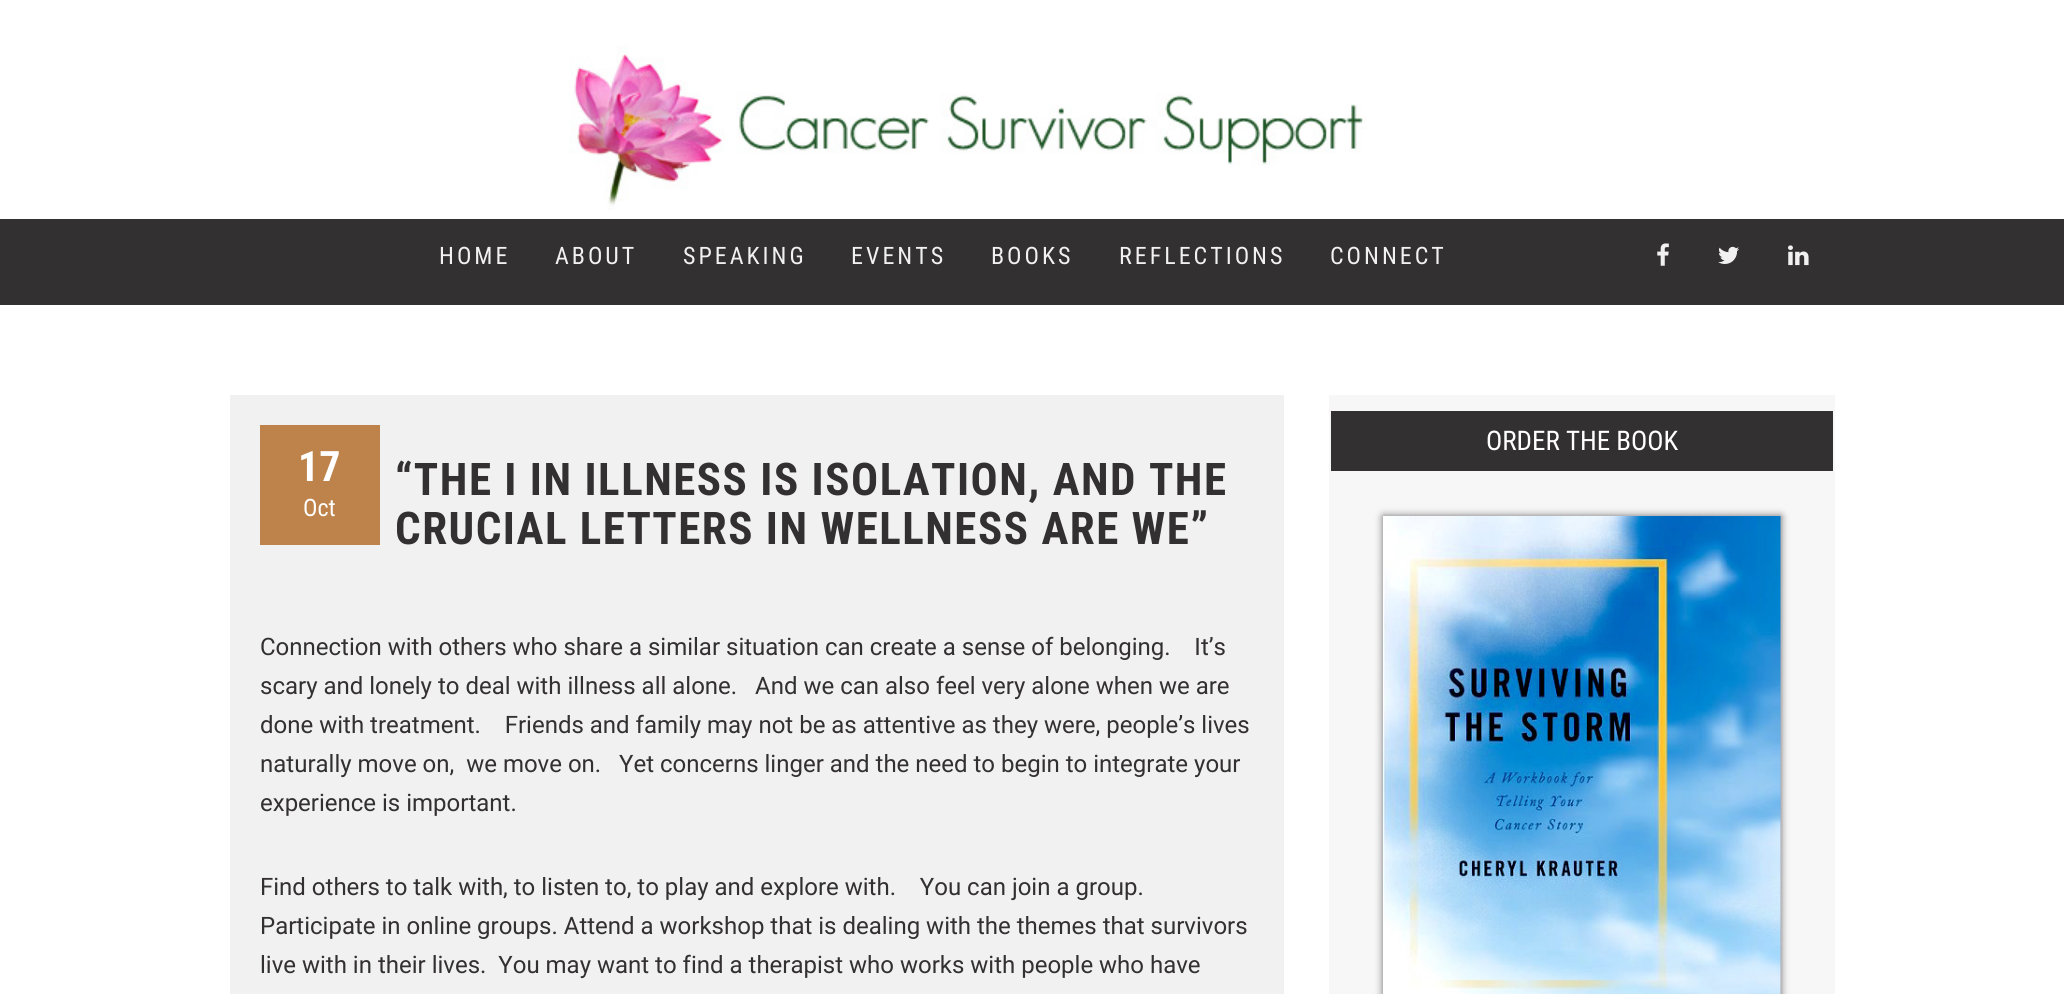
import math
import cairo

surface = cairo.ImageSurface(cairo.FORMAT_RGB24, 2064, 994)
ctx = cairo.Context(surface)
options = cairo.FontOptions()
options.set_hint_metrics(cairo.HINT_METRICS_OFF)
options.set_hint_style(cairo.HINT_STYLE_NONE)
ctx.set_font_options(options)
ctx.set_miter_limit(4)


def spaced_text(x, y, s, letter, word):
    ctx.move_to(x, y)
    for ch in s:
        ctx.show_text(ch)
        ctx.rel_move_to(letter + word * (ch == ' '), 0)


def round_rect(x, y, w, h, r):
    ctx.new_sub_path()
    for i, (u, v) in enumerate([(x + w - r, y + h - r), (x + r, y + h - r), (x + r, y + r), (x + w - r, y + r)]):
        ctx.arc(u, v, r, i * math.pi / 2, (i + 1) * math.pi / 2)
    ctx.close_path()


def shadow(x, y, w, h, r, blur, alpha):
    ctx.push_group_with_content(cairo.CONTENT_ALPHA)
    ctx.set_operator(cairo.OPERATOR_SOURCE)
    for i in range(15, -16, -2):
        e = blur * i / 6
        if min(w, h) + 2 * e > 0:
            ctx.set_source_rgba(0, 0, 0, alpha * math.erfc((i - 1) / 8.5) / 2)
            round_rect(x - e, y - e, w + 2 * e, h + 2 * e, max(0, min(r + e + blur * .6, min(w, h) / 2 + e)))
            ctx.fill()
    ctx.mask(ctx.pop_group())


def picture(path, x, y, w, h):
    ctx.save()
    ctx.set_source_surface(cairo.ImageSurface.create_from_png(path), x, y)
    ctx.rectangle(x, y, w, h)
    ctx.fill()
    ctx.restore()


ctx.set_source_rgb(1, 1, 1)
ctx.paint()
picture("img1.png", 569, 45, 798, 165)
ctx.set_source_rgb(0.2, 0.188, 0.192)
ctx.rectangle(0, 219, 2064, 86)
ctx.fill()
ctx.select_font_face("Roboto Condensed")
ctx.set_font_size(24)
ctx.set_source_rgb(0.945, 0.945, 0.945)
spaced_text(439, 264, "HOME", 3, 0)
spaced_text(555, 264, "ABOUT", 3, 0)
spaced_text(683, 264, "SPEAKING", 3, 0)
spaced_text(851, 264, "EVENTS", 3, 0)
spaced_text(991, 264, "BOOKS", 3, 0)
spaced_text(1119, 264, "REFLECTIONS", 3, 0)
spaced_text(1330, 264, "CONNECT", 3, 0)
picture("img2.png", 1657, 243, 12, 23)
picture("img3.png", 1718, 246, 21, 18)
picture("img4.png", 1788, 245, 21, 21)
ctx.set_source_rgb(0.965, 0.965, 0.965)
ctx.rectangle(1329, 395, 506, 599)
ctx.fill()
ctx.set_source_rgb(0.2, 0.188, 0.192)
ctx.rectangle(1331, 411, 502, 60)
ctx.fill()
ctx.set_font_size(27)
ctx.set_source_rgb(1, 1, 1)
ctx.move_to(1486, 450)
ctx.show_text("ORDER THE BOOK")
ctx.set_source_rgb(0.439, 0.424, 0.439)
shadow(1383, 516, 398, 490, 0, 4, 1)
picture("img5.png", 1383, 516, 398, 478)
ctx.set_source_rgb(0.945, 0.945, 0.945)
ctx.rectangle(230, 395, 1054, 599)
ctx.fill()
ctx.set_source_rgb(0.745, 0.514, 0.29)
ctx.rectangle(260, 425, 120, 120)
ctx.fill()
ctx.select_font_face("Roboto Condensed", cairo.FONT_SLANT_NORMAL, cairo.FONT_WEIGHT_BOLD)
ctx.set_font_size(42)
ctx.set_source_rgb(1, 1, 1)
ctx.move_to(298, 481)
ctx.show_text("17")
ctx.select_font_face("Roboto Condensed")
ctx.set_font_size(24)
ctx.move_to(303, 516)
ctx.show_text("Oct")
ctx.select_font_face("Roboto Condensed", cairo.FONT_SLANT_NORMAL, cairo.FONT_WEIGHT_BOLD)
ctx.set_font_size(45)
ctx.set_source_rgb(0.2, 0.188, 0.192)
spaced_text(395, 495, "“THE I IN ILLNESS IS ISOLATION, AND THE", 1.5, 0)
spaced_text(395, 544, "CRUCIAL LETTERS IN WELLNESS ARE WE”", 1.5, 0)
ctx.select_font_face("Roboto")
ctx.set_font_size(24)
ctx.move_to(260, 655)
ctx.show_text("Connection with others who share a similar situation can create a sense of belonging.    It’s")
ctx.move_to(260, 694)
ctx.show_text("scary and lonely to deal with illness all alone.   And we can also feel very alone when we are")
ctx.move_to(260, 733)
ctx.show_text("done with treatment.    Friends and family may not be as attentive as they were, people’s lives")
ctx.move_to(260, 772)
ctx.show_text("naturally move on,  we move on.   Yet concerns linger and the need to begin to integrate your")
ctx.move_to(260, 811)
ctx.show_text("experience is important.")
ctx.move_to(260, 895)
ctx.show_text("Find others to talk with, to listen to, to play and explore with.    You can join a group.")
ctx.move_to(260, 934)
ctx.show_text("Participate in online groups. Attend a workshop that is dealing with the themes that survivors")
ctx.move_to(260, 973)
ctx.show_text("live with in their lives.  You may want to find a therapist who works with people who have")
surface.write_to_png("page.png")
